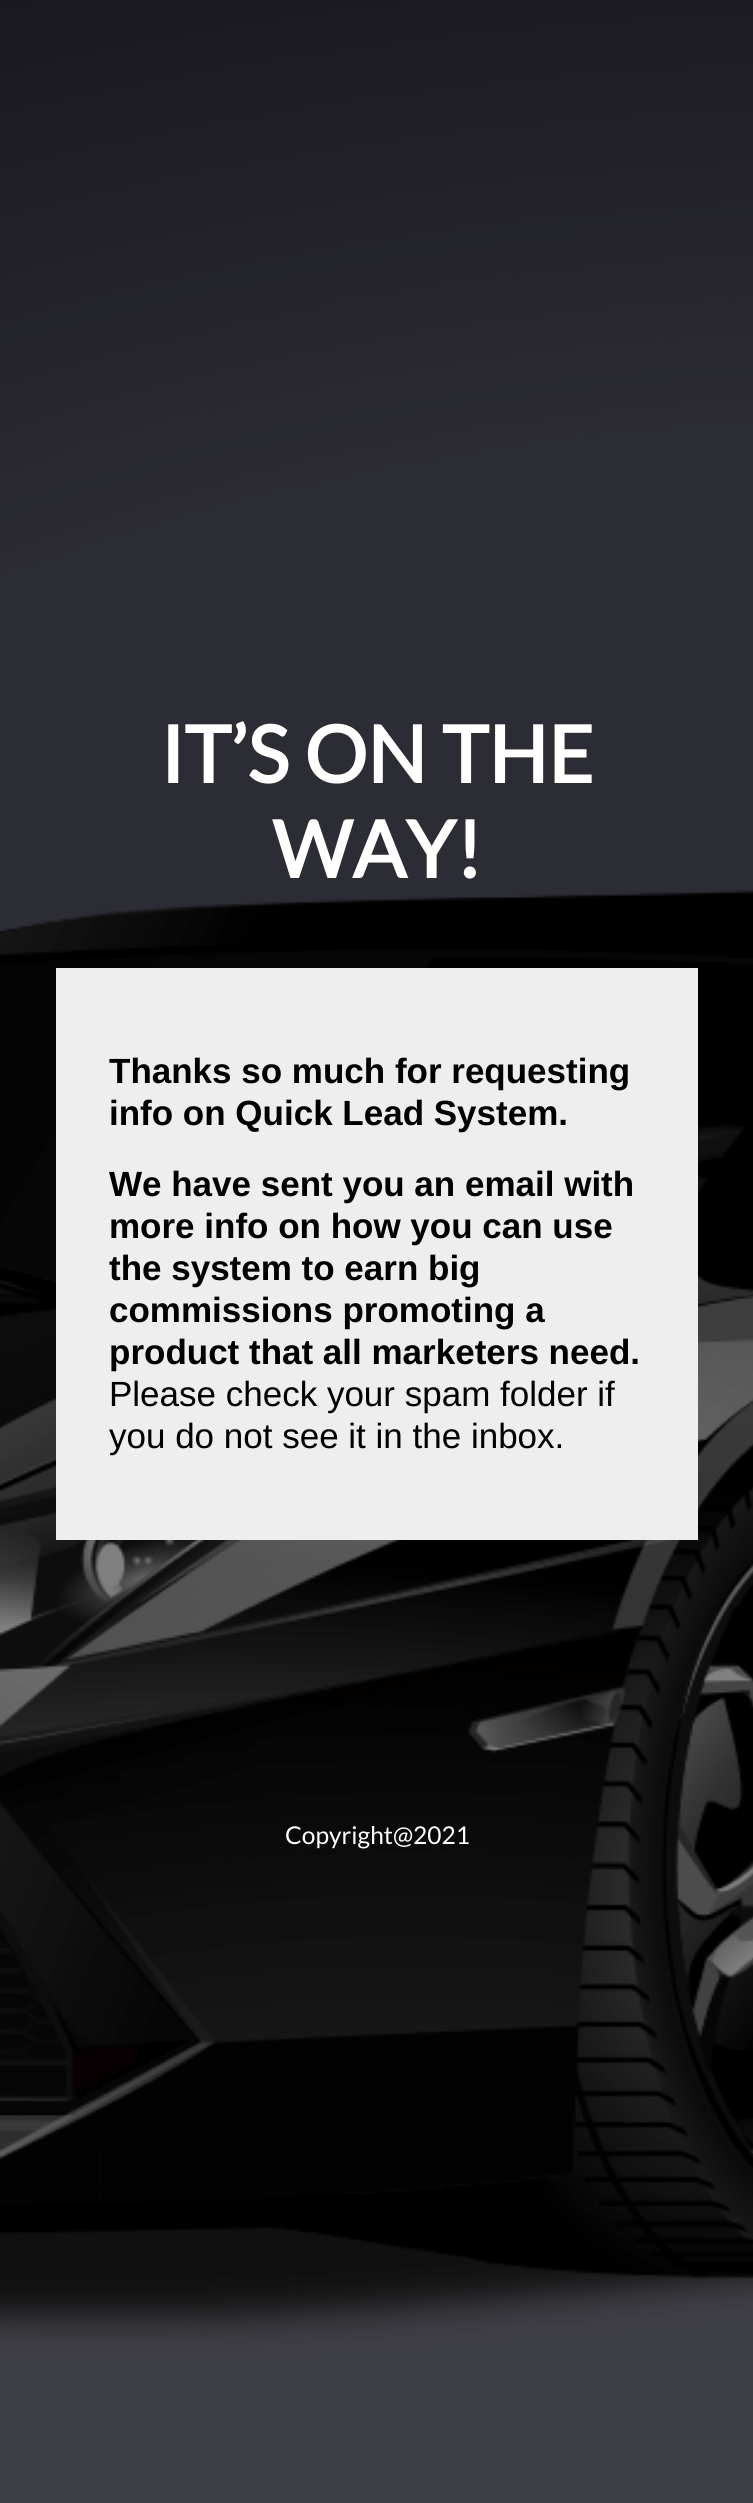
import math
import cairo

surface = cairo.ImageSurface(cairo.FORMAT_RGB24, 753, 2503)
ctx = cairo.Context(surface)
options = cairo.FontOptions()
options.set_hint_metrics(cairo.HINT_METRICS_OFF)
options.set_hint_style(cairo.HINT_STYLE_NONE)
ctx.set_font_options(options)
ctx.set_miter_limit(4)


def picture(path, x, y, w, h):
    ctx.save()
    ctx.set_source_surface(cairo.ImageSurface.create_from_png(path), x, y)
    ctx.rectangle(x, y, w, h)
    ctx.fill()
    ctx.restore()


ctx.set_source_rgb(1, 1, 1)
ctx.paint()
picture("img1.png", 0, 0, 753, 2503)
ctx.select_font_face("Lato", cairo.FONT_SLANT_NORMAL, cairo.FONT_WEIGHT_BOLD)
ctx.set_font_size(78.75)
ctx.set_source_rgb(1, 1, 1)
ctx.move_to(160, 783)
ctx.show_text("IT’S ON THE")
ctx.move_to(272, 878)
ctx.show_text("WAY!")
ctx.set_source_rgb(0.933, 0.933, 0.933)
ctx.rectangle(56, 968, 642, 572)
ctx.fill()
ctx.select_font_face("Liberation Sans", cairo.FONT_SLANT_NORMAL, cairo.FONT_WEIGHT_BOLD)
ctx.set_font_size(35)
ctx.set_source_rgb(0, 0, 0)
ctx.move_to(109, 1083)
ctx.show_text("Thanks so much for requesting")
ctx.move_to(109, 1125)
ctx.show_text("info on Quick Lead System.")
ctx.move_to(109, 1196)
ctx.show_text("We have sent you an email with")
ctx.move_to(109, 1238)
ctx.show_text("more info on how you can use")
ctx.move_to(109, 1280)
ctx.show_text("the system to earn big")
ctx.move_to(109, 1322)
ctx.show_text("commissions promoting a")
ctx.move_to(109, 1364)
ctx.show_text("product that all marketers need.")
ctx.select_font_face("Liberation Sans")
ctx.move_to(109, 1406)
ctx.show_text("Please check your spam folder if")
ctx.move_to(109, 1448)
ctx.show_text("you do not see it in the inbox.")
ctx.select_font_face("Lato")
ctx.set_font_size(24.5)
ctx.set_source_rgb(1, 1, 1)
ctx.move_to(285, 1844)
ctx.show_text("Copyright@2021")
surface.write_to_png("page.png")
